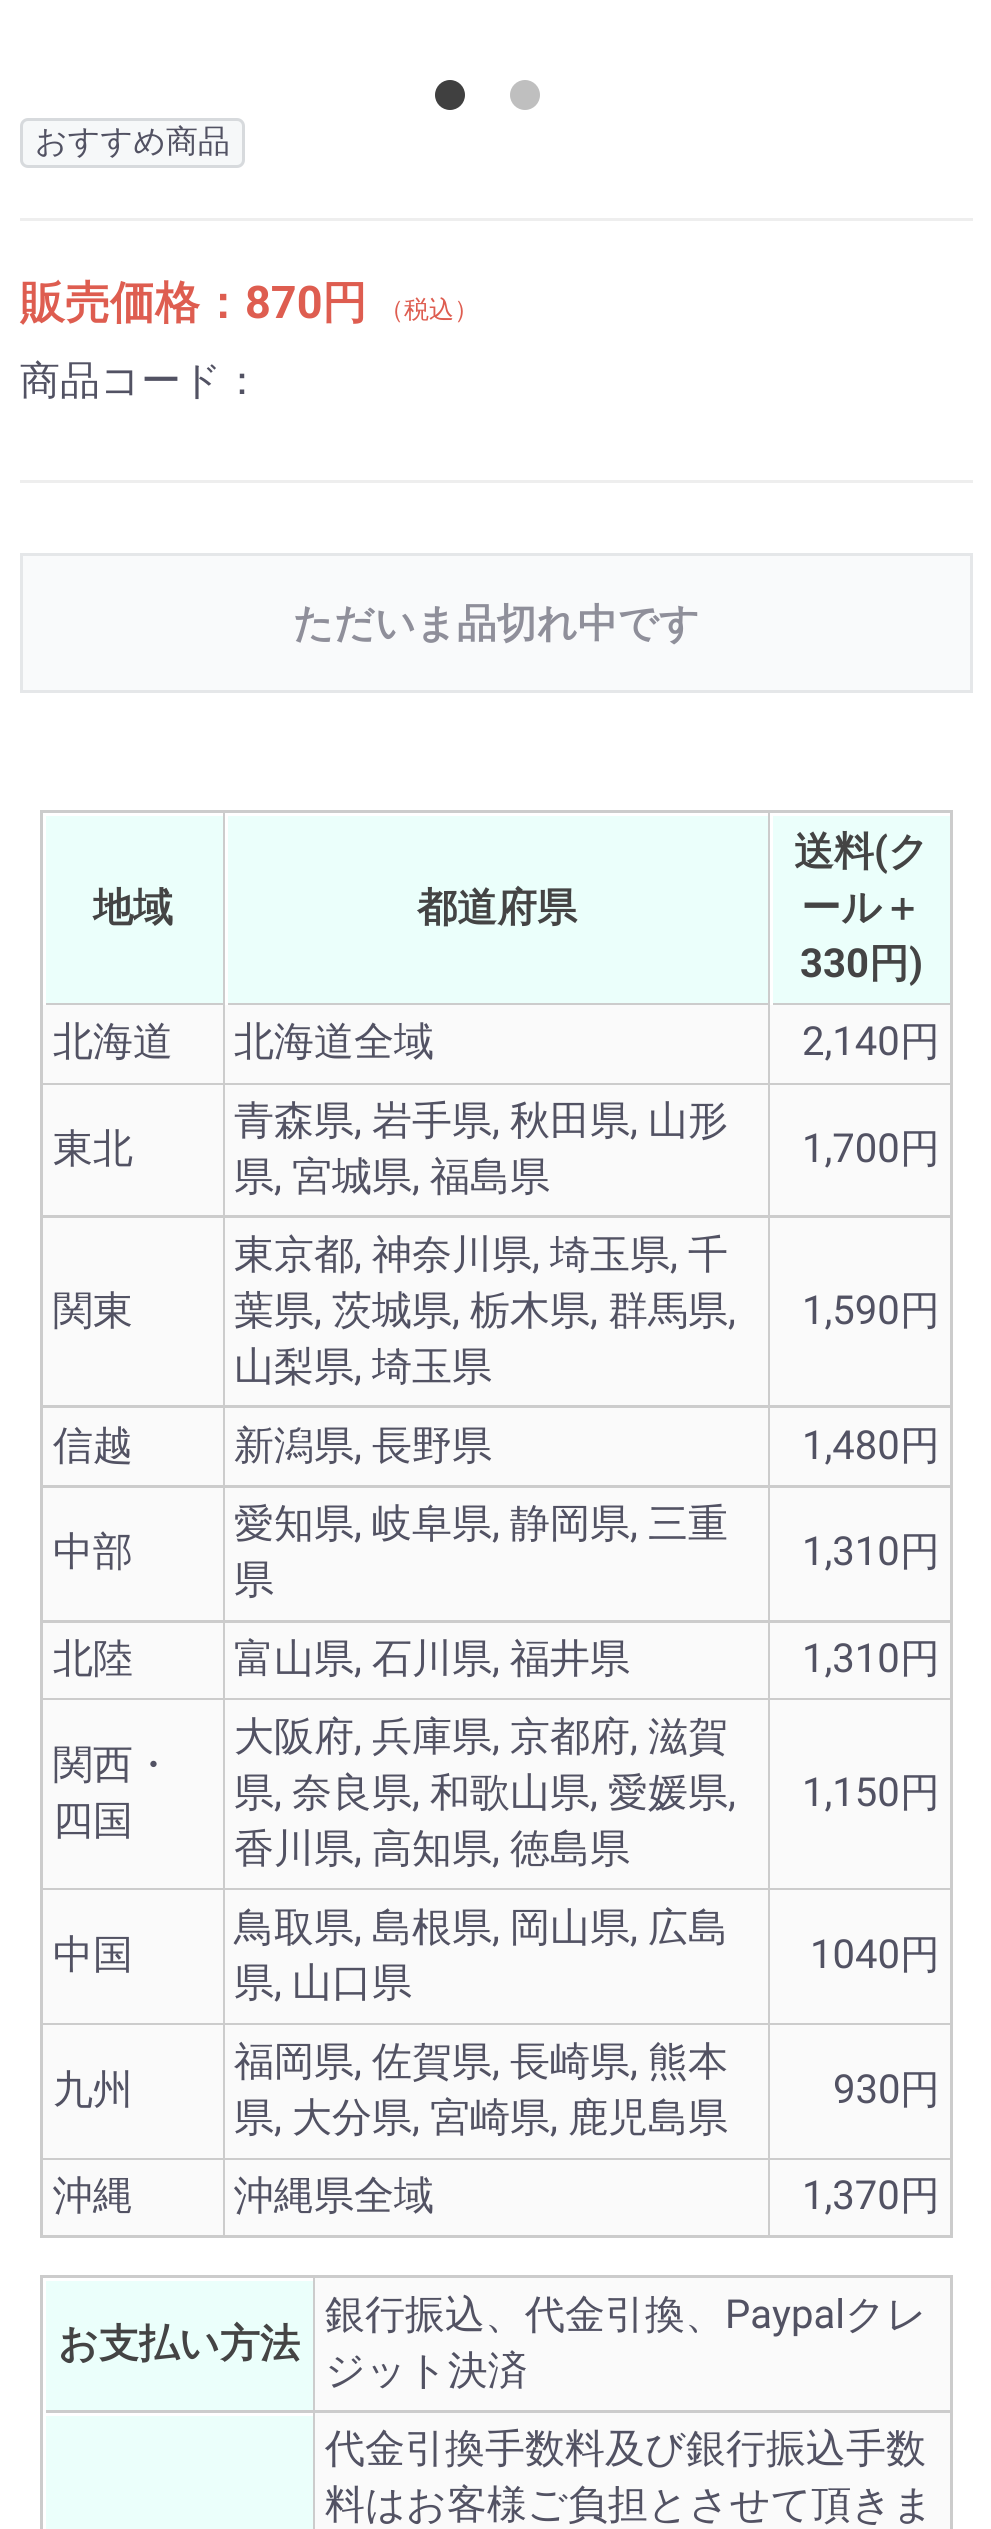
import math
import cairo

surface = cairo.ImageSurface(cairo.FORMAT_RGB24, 991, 2529)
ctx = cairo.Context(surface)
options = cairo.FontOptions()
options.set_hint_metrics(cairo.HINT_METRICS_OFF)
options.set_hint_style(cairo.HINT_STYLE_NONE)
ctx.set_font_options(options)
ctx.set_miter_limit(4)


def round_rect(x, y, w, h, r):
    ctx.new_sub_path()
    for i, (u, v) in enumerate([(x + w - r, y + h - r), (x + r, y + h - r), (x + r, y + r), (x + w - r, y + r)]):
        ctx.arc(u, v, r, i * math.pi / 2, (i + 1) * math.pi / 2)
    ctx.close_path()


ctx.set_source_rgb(1, 1, 1)
ctx.paint()
ctx.set_source_rgb(0.251, 0.251, 0.251)
ctx.arc(450, 95, 15, 0, 2 * math.pi)
ctx.fill()
ctx.set_source_rgb(0.749, 0.749, 0.749)
ctx.arc(525, 95, 15, 0, 2 * math.pi)
ctx.fill()
ctx.set_source_rgb(0.961, 0.969, 0.973)
round_rect(21.5, 119.5, 222, 47, 6.5)
ctx.fill_preserve()
ctx.set_source_rgb(0.843, 0.855, 0.867)
ctx.set_line_width(3)
ctx.stroke()
ctx.select_font_face("WenQuanYi Zen Hei Medium")
ctx.set_font_size(32)
ctx.set_source_rgb(0.322, 0.322, 0.388)
ctx.move_to(35, 152)
ctx.show_text("おすすめ商品")
ctx.set_source_rgb(0.933, 0.933, 0.933)
ctx.rectangle(20, 218, 953, 3)
ctx.fill()
ctx.select_font_face("WenQuanYi Zen Hei", cairo.FONT_SLANT_NORMAL, cairo.FONT_WEIGHT_BOLD)
ctx.set_font_size(45)
ctx.set_source_rgb(0.871, 0.365, 0.314)
ctx.move_to(20, 318)
ctx.show_text("販売価格：")
ctx.select_font_face("Roboto", cairo.FONT_SLANT_NORMAL, cairo.FONT_WEIGHT_BOLD)
ctx.move_to(245, 318)
ctx.show_text("870")
ctx.select_font_face("WenQuanYi Zen Hei", cairo.FONT_SLANT_NORMAL, cairo.FONT_WEIGHT_BOLD)
ctx.move_to(322, 318)
ctx.show_text("円")
ctx.select_font_face("WenQuanYi Zen Hei Medium")
ctx.set_font_size(25)
ctx.move_to(379, 318)
ctx.show_text("（税込）")
ctx.set_font_size(40)
ctx.set_source_rgb(0.322, 0.322, 0.388)
ctx.move_to(20, 394)
ctx.show_text("商品コード：")
ctx.set_source_rgb(0.933, 0.933, 0.933)
ctx.rectangle(20, 480, 953, 3)
ctx.fill()
ctx.set_source_rgb(0.976, 0.98, 0.984)
ctx.rectangle(21.5, 554.5, 950, 137)
ctx.fill_preserve()
ctx.set_source_rgb(0.898, 0.906, 0.914)
ctx.stroke()
ctx.select_font_face("WenQuanYi Zen Hei", cairo.FONT_SLANT_NORMAL, cairo.FONT_WEIGHT_BOLD)
ctx.set_source_rgb(0.561, 0.561, 0.604)
ctx.move_to(293, 637)
ctx.show_text("ただいま品切れ中です")
ctx.set_source_rgb(0.8, 0.8, 0.8)
ctx.rectangle(40, 810, 913, 3)
ctx.fill()
ctx.rectangle(40, 810, 3, 1428)
ctx.fill()
ctx.set_source_rgb(0.918, 1, 0.984)
ctx.rectangle(46, 816, 177, 187)
ctx.fill()
ctx.set_source_rgb(0.8, 0.8, 0.8)
ctx.rectangle(223, 813, 2, 1425)
ctx.fill()
ctx.rectangle(43, 1003, 182, 2)
ctx.fill()
ctx.set_source_rgb(1, 1, 1)
ctx.rectangle(43, 1003, 3, 2)
ctx.fill()
ctx.set_source_rgb(0.267, 0.267, 0.267)
ctx.move_to(93, 921)
ctx.show_text("地域")
ctx.set_source_rgb(0.918, 1, 0.984)
ctx.rectangle(228, 816, 540, 187)
ctx.fill()
ctx.set_source_rgb(0.8, 0.8, 0.8)
ctx.rectangle(768, 813, 2, 1425)
ctx.fill()
ctx.rectangle(225, 1003, 545, 2)
ctx.fill()
ctx.set_source_rgb(1, 1, 1)
ctx.rectangle(225, 1003, 3, 2)
ctx.fill()
ctx.set_source_rgb(0.267, 0.267, 0.267)
ctx.move_to(417, 921)
ctx.show_text("都道府県")
ctx.set_source_rgb(0.918, 1, 0.984)
ctx.rectangle(773, 816, 177, 187)
ctx.fill()
ctx.set_source_rgb(0.8, 0.8, 0.8)
ctx.rectangle(950, 813, 3, 1425)
ctx.fill()
ctx.rectangle(770, 1003, 183, 2)
ctx.fill()
ctx.set_source_rgb(1, 1, 1)
ctx.rectangle(770, 1003, 3, 2)
ctx.fill()
ctx.set_source_rgb(0.267, 0.267, 0.267)
ctx.move_to(794, 865)
ctx.show_text("送料")
ctx.select_font_face("Roboto", cairo.FONT_SLANT_NORMAL, cairo.FONT_WEIGHT_BOLD)
ctx.move_to(874, 865)
ctx.show_text("(")
ctx.select_font_face("WenQuanYi Zen Hei", cairo.FONT_SLANT_NORMAL, cairo.FONT_WEIGHT_BOLD)
ctx.move_to(888, 865)
ctx.show_text("ク")
ctx.move_to(801, 921)
ctx.show_text("ール＋")
ctx.select_font_face("Roboto", cairo.FONT_SLANT_NORMAL, cairo.FONT_WEIGHT_BOLD)
ctx.move_to(800, 977)
ctx.show_text("330")
ctx.select_font_face("WenQuanYi Zen Hei", cairo.FONT_SLANT_NORMAL, cairo.FONT_WEIGHT_BOLD)
ctx.move_to(869, 977)
ctx.show_text("円")
ctx.select_font_face("Roboto", cairo.FONT_SLANT_NORMAL, cairo.FONT_WEIGHT_BOLD)
ctx.move_to(909, 977)
ctx.show_text(")")
ctx.set_source_rgb(0.98, 0.98, 0.98)
ctx.rectangle(43, 1005, 180, 78)
ctx.fill()
ctx.set_source_rgb(0.8, 0.8, 0.8)
ctx.rectangle(43, 1083, 910, 2)
ctx.fill()
ctx.select_font_face("WenQuanYi Zen Hei Medium")
ctx.set_source_rgb(0.322, 0.322, 0.388)
ctx.move_to(53, 1055)
ctx.show_text("北海道")
ctx.set_source_rgb(0.98, 0.98, 0.98)
ctx.rectangle(225, 1005, 543, 78)
ctx.fill()
ctx.set_source_rgb(0.322, 0.322, 0.388)
ctx.move_to(234, 1055)
ctx.show_text("北海道全域")
ctx.set_source_rgb(0.98, 0.98, 0.98)
ctx.rectangle(770, 1005, 180, 78)
ctx.fill()
ctx.select_font_face("Roboto")
ctx.set_source_rgb(0.322, 0.322, 0.388)
ctx.move_to(802, 1055)
ctx.show_text("2,140")
ctx.select_font_face("WenQuanYi Zen Hei Medium")
ctx.move_to(900, 1055)
ctx.show_text("円")
ctx.set_source_rgb(0.98, 0.98, 0.98)
ctx.rectangle(43, 1085, 180, 130)
ctx.fill()
ctx.set_source_rgb(0.8, 0.8, 0.8)
ctx.rectangle(43, 1215, 910, 3)
ctx.fill()
ctx.set_source_rgb(0.322, 0.322, 0.388)
ctx.move_to(53, 1162)
ctx.show_text("東北")
ctx.set_source_rgb(0.98, 0.98, 0.98)
ctx.rectangle(225, 1085, 543, 130)
ctx.fill()
ctx.set_source_rgb(0.322, 0.322, 0.388)
ctx.move_to(234, 1134)
ctx.show_text("青森県")
ctx.select_font_face("Roboto")
ctx.move_to(354, 1134)
ctx.show_text(",")
ctx.select_font_face("WenQuanYi Zen Hei Medium")
ctx.move_to(372, 1134)
ctx.show_text("岩手県")
ctx.select_font_face("Roboto")
ctx.move_to(492, 1134)
ctx.show_text(",")
ctx.select_font_face("WenQuanYi Zen Hei Medium")
ctx.move_to(510, 1134)
ctx.show_text("秋田県")
ctx.select_font_face("Roboto")
ctx.move_to(630, 1134)
ctx.show_text(",")
ctx.select_font_face("WenQuanYi Zen Hei Medium")
ctx.move_to(648, 1134)
ctx.show_text("山形")
ctx.move_to(234, 1190)
ctx.show_text("県")
ctx.select_font_face("Roboto")
ctx.move_to(274, 1190)
ctx.show_text(",")
ctx.select_font_face("WenQuanYi Zen Hei Medium")
ctx.move_to(292, 1190)
ctx.show_text("宮城県")
ctx.select_font_face("Roboto")
ctx.move_to(412, 1190)
ctx.show_text(",")
ctx.select_font_face("WenQuanYi Zen Hei Medium")
ctx.move_to(430, 1190)
ctx.show_text("福島県")
ctx.set_source_rgb(0.98, 0.98, 0.98)
ctx.rectangle(770, 1085, 180, 130)
ctx.fill()
ctx.select_font_face("Roboto")
ctx.set_source_rgb(0.322, 0.322, 0.388)
ctx.move_to(802, 1162)
ctx.show_text("1,700")
ctx.select_font_face("WenQuanYi Zen Hei Medium")
ctx.move_to(900, 1162)
ctx.show_text("円")
ctx.set_source_rgb(0.98, 0.98, 0.98)
ctx.rectangle(43, 1218, 180, 187)
ctx.fill()
ctx.set_source_rgb(0.8, 0.8, 0.8)
ctx.rectangle(43, 1405, 910, 3)
ctx.fill()
ctx.set_source_rgb(0.322, 0.322, 0.388)
ctx.move_to(53, 1324)
ctx.show_text("関東")
ctx.set_source_rgb(0.98, 0.98, 0.98)
ctx.rectangle(225, 1218, 543, 187)
ctx.fill()
ctx.set_source_rgb(0.322, 0.322, 0.388)
ctx.move_to(234, 1268)
ctx.show_text("東京都")
ctx.select_font_face("Roboto")
ctx.move_to(354, 1268)
ctx.show_text(",")
ctx.select_font_face("WenQuanYi Zen Hei Medium")
ctx.move_to(372, 1268)
ctx.show_text("神奈川県")
ctx.select_font_face("Roboto")
ctx.move_to(532, 1268)
ctx.show_text(",")
ctx.select_font_face("WenQuanYi Zen Hei Medium")
ctx.move_to(550, 1268)
ctx.show_text("埼玉県")
ctx.select_font_face("Roboto")
ctx.move_to(670, 1268)
ctx.show_text(",")
ctx.select_font_face("WenQuanYi Zen Hei Medium")
ctx.move_to(688, 1268)
ctx.show_text("千")
ctx.move_to(234, 1324)
ctx.show_text("葉県")
ctx.select_font_face("Roboto")
ctx.move_to(314, 1324)
ctx.show_text(",")
ctx.select_font_face("WenQuanYi Zen Hei Medium")
ctx.move_to(332, 1324)
ctx.show_text("茨城県")
ctx.select_font_face("Roboto")
ctx.move_to(452, 1324)
ctx.show_text(",")
ctx.select_font_face("WenQuanYi Zen Hei Medium")
ctx.move_to(470, 1324)
ctx.show_text("栃木県")
ctx.select_font_face("Roboto")
ctx.move_to(590, 1324)
ctx.show_text(",")
ctx.select_font_face("WenQuanYi Zen Hei Medium")
ctx.move_to(608, 1324)
ctx.show_text("群馬県")
ctx.select_font_face("Roboto")
ctx.move_to(728, 1324)
ctx.show_text(",")
ctx.select_font_face("WenQuanYi Zen Hei Medium")
ctx.move_to(234, 1380)
ctx.show_text("山梨県")
ctx.select_font_face("Roboto")
ctx.move_to(354, 1380)
ctx.show_text(",")
ctx.select_font_face("WenQuanYi Zen Hei Medium")
ctx.move_to(372, 1380)
ctx.show_text("埼玉県")
ctx.set_source_rgb(0.98, 0.98, 0.98)
ctx.rectangle(770, 1218, 180, 187)
ctx.fill()
ctx.select_font_face("Roboto")
ctx.set_source_rgb(0.322, 0.322, 0.388)
ctx.move_to(802, 1324)
ctx.show_text("1,590")
ctx.select_font_face("WenQuanYi Zen Hei Medium")
ctx.move_to(900, 1324)
ctx.show_text("円")
ctx.set_source_rgb(0.98, 0.98, 0.98)
ctx.rectangle(43, 1408, 180, 77)
ctx.fill()
ctx.set_source_rgb(0.8, 0.8, 0.8)
ctx.rectangle(43, 1485, 910, 3)
ctx.fill()
ctx.set_source_rgb(0.322, 0.322, 0.388)
ctx.move_to(53, 1459)
ctx.show_text("信越")
ctx.set_source_rgb(0.98, 0.98, 0.98)
ctx.rectangle(225, 1408, 543, 77)
ctx.fill()
ctx.set_source_rgb(0.322, 0.322, 0.388)
ctx.move_to(234, 1459)
ctx.show_text("新潟県")
ctx.select_font_face("Roboto")
ctx.move_to(354, 1459)
ctx.show_text(",")
ctx.select_font_face("WenQuanYi Zen Hei Medium")
ctx.move_to(372, 1459)
ctx.show_text("長野県")
ctx.set_source_rgb(0.98, 0.98, 0.98)
ctx.rectangle(770, 1408, 180, 77)
ctx.fill()
ctx.select_font_face("Roboto")
ctx.set_source_rgb(0.322, 0.322, 0.388)
ctx.move_to(802, 1459)
ctx.show_text("1,480")
ctx.select_font_face("WenQuanYi Zen Hei Medium")
ctx.move_to(900, 1459)
ctx.show_text("円")
ctx.set_source_rgb(0.98, 0.98, 0.98)
ctx.rectangle(43, 1488, 180, 132)
ctx.fill()
ctx.set_source_rgb(0.8, 0.8, 0.8)
ctx.rectangle(43, 1620, 910, 3)
ctx.fill()
ctx.set_source_rgb(0.322, 0.322, 0.388)
ctx.move_to(53, 1565)
ctx.show_text("中部")
ctx.set_source_rgb(0.98, 0.98, 0.98)
ctx.rectangle(225, 1488, 543, 132)
ctx.fill()
ctx.set_source_rgb(0.322, 0.322, 0.388)
ctx.move_to(234, 1537)
ctx.show_text("愛知県")
ctx.select_font_face("Roboto")
ctx.move_to(354, 1537)
ctx.show_text(",")
ctx.select_font_face("WenQuanYi Zen Hei Medium")
ctx.move_to(372, 1537)
ctx.show_text("岐阜県")
ctx.select_font_face("Roboto")
ctx.move_to(492, 1537)
ctx.show_text(",")
ctx.select_font_face("WenQuanYi Zen Hei Medium")
ctx.move_to(510, 1537)
ctx.show_text("静岡県")
ctx.select_font_face("Roboto")
ctx.move_to(630, 1537)
ctx.show_text(",")
ctx.select_font_face("WenQuanYi Zen Hei Medium")
ctx.move_to(648, 1537)
ctx.show_text("三重")
ctx.move_to(234, 1593)
ctx.show_text("県")
ctx.set_source_rgb(0.98, 0.98, 0.98)
ctx.rectangle(770, 1488, 180, 132)
ctx.fill()
ctx.select_font_face("Roboto")
ctx.set_source_rgb(0.322, 0.322, 0.388)
ctx.move_to(802, 1565)
ctx.show_text("1,310")
ctx.select_font_face("WenQuanYi Zen Hei Medium")
ctx.move_to(900, 1565)
ctx.show_text("円")
ctx.set_source_rgb(0.98, 0.98, 0.98)
ctx.rectangle(43, 1623, 180, 75)
ctx.fill()
ctx.set_source_rgb(0.8, 0.8, 0.8)
ctx.rectangle(43, 1698, 910, 2)
ctx.fill()
ctx.set_source_rgb(0.322, 0.322, 0.388)
ctx.move_to(53, 1672)
ctx.show_text("北陸")
ctx.set_source_rgb(0.98, 0.98, 0.98)
ctx.rectangle(225, 1623, 543, 75)
ctx.fill()
ctx.set_source_rgb(0.322, 0.322, 0.388)
ctx.move_to(234, 1672)
ctx.show_text("富山県")
ctx.select_font_face("Roboto")
ctx.move_to(354, 1672)
ctx.show_text(",")
ctx.select_font_face("WenQuanYi Zen Hei Medium")
ctx.move_to(372, 1672)
ctx.show_text("石川県")
ctx.select_font_face("Roboto")
ctx.move_to(492, 1672)
ctx.show_text(",")
ctx.select_font_face("WenQuanYi Zen Hei Medium")
ctx.move_to(510, 1672)
ctx.show_text("福井県")
ctx.set_source_rgb(0.98, 0.98, 0.98)
ctx.rectangle(770, 1623, 180, 75)
ctx.fill()
ctx.select_font_face("Roboto")
ctx.set_source_rgb(0.322, 0.322, 0.388)
ctx.move_to(802, 1672)
ctx.show_text("1,310")
ctx.select_font_face("WenQuanYi Zen Hei Medium")
ctx.move_to(900, 1672)
ctx.show_text("円")
ctx.set_source_rgb(0.98, 0.98, 0.98)
ctx.rectangle(43, 1700, 180, 188)
ctx.fill()
ctx.set_source_rgb(0.8, 0.8, 0.8)
ctx.rectangle(43, 1888, 910, 2)
ctx.fill()
ctx.set_source_rgb(0.322, 0.322, 0.388)
ctx.move_to(53, 1778)
ctx.show_text("関西・")
ctx.move_to(53, 1834)
ctx.show_text("四国")
ctx.set_source_rgb(0.98, 0.98, 0.98)
ctx.rectangle(225, 1700, 543, 188)
ctx.fill()
ctx.set_source_rgb(0.322, 0.322, 0.388)
ctx.move_to(234, 1750)
ctx.show_text("大阪府")
ctx.select_font_face("Roboto")
ctx.move_to(354, 1750)
ctx.show_text(",")
ctx.select_font_face("WenQuanYi Zen Hei Medium")
ctx.move_to(372, 1750)
ctx.show_text("兵庫県")
ctx.select_font_face("Roboto")
ctx.move_to(492, 1750)
ctx.show_text(",")
ctx.select_font_face("WenQuanYi Zen Hei Medium")
ctx.move_to(510, 1750)
ctx.show_text("京都府")
ctx.select_font_face("Roboto")
ctx.move_to(630, 1750)
ctx.show_text(",")
ctx.select_font_face("WenQuanYi Zen Hei Medium")
ctx.move_to(648, 1750)
ctx.show_text("滋賀")
ctx.move_to(234, 1806)
ctx.show_text("県")
ctx.select_font_face("Roboto")
ctx.move_to(274, 1806)
ctx.show_text(",")
ctx.select_font_face("WenQuanYi Zen Hei Medium")
ctx.move_to(292, 1806)
ctx.show_text("奈良県")
ctx.select_font_face("Roboto")
ctx.move_to(412, 1806)
ctx.show_text(",")
ctx.select_font_face("WenQuanYi Zen Hei Medium")
ctx.move_to(430, 1806)
ctx.show_text("和歌山県")
ctx.select_font_face("Roboto")
ctx.move_to(590, 1806)
ctx.show_text(",")
ctx.select_font_face("WenQuanYi Zen Hei Medium")
ctx.move_to(608, 1806)
ctx.show_text("愛媛県")
ctx.select_font_face("Roboto")
ctx.move_to(728, 1806)
ctx.show_text(",")
ctx.select_font_face("WenQuanYi Zen Hei Medium")
ctx.move_to(234, 1862)
ctx.show_text("香川県")
ctx.select_font_face("Roboto")
ctx.move_to(354, 1862)
ctx.show_text(",")
ctx.select_font_face("WenQuanYi Zen Hei Medium")
ctx.move_to(372, 1862)
ctx.show_text("高知県")
ctx.select_font_face("Roboto")
ctx.move_to(492, 1862)
ctx.show_text(",")
ctx.select_font_face("WenQuanYi Zen Hei Medium")
ctx.move_to(510, 1862)
ctx.show_text("徳島県")
ctx.set_source_rgb(0.98, 0.98, 0.98)
ctx.rectangle(770, 1700, 180, 188)
ctx.fill()
ctx.select_font_face("Roboto")
ctx.set_source_rgb(0.322, 0.322, 0.388)
ctx.move_to(802, 1806)
ctx.show_text("1,150")
ctx.select_font_face("WenQuanYi Zen Hei Medium")
ctx.move_to(900, 1806)
ctx.show_text("円")
ctx.set_source_rgb(0.98, 0.98, 0.98)
ctx.rectangle(43, 1890, 180, 133)
ctx.fill()
ctx.set_source_rgb(0.8, 0.8, 0.8)
ctx.rectangle(43, 2023, 910, 2)
ctx.fill()
ctx.set_source_rgb(0.322, 0.322, 0.388)
ctx.move_to(53, 1968)
ctx.show_text("中国")
ctx.set_source_rgb(0.98, 0.98, 0.98)
ctx.rectangle(225, 1890, 543, 133)
ctx.fill()
ctx.set_source_rgb(0.322, 0.322, 0.388)
ctx.move_to(234, 1941)
ctx.show_text("鳥取県")
ctx.select_font_face("Roboto")
ctx.move_to(354, 1941)
ctx.show_text(",")
ctx.select_font_face("WenQuanYi Zen Hei Medium")
ctx.move_to(372, 1941)
ctx.show_text("島根県")
ctx.select_font_face("Roboto")
ctx.move_to(492, 1941)
ctx.show_text(",")
ctx.select_font_face("WenQuanYi Zen Hei Medium")
ctx.move_to(510, 1941)
ctx.show_text("岡山県")
ctx.select_font_face("Roboto")
ctx.move_to(630, 1941)
ctx.show_text(",")
ctx.select_font_face("WenQuanYi Zen Hei Medium")
ctx.move_to(648, 1941)
ctx.show_text("広島")
ctx.move_to(234, 1996)
ctx.show_text("県")
ctx.select_font_face("Roboto")
ctx.move_to(274, 1996)
ctx.show_text(",")
ctx.select_font_face("WenQuanYi Zen Hei Medium")
ctx.move_to(292, 1996)
ctx.show_text("山口県")
ctx.set_source_rgb(0.98, 0.98, 0.98)
ctx.rectangle(770, 1890, 180, 133)
ctx.fill()
ctx.select_font_face("Roboto")
ctx.set_source_rgb(0.322, 0.322, 0.388)
ctx.move_to(810, 1968)
ctx.show_text("1040")
ctx.select_font_face("WenQuanYi Zen Hei Medium")
ctx.move_to(900, 1968)
ctx.show_text("円")
ctx.set_source_rgb(0.98, 0.98, 0.98)
ctx.rectangle(43, 2025, 180, 133)
ctx.fill()
ctx.set_source_rgb(0.8, 0.8, 0.8)
ctx.rectangle(43, 2158, 910, 2)
ctx.fill()
ctx.set_source_rgb(0.322, 0.322, 0.388)
ctx.move_to(53, 2103)
ctx.show_text("九州")
ctx.set_source_rgb(0.98, 0.98, 0.98)
ctx.rectangle(225, 2025, 543, 133)
ctx.fill()
ctx.set_source_rgb(0.322, 0.322, 0.388)
ctx.move_to(234, 2075)
ctx.show_text("福岡県")
ctx.select_font_face("Roboto")
ctx.move_to(354, 2075)
ctx.show_text(",")
ctx.select_font_face("WenQuanYi Zen Hei Medium")
ctx.move_to(372, 2075)
ctx.show_text("佐賀県")
ctx.select_font_face("Roboto")
ctx.move_to(492, 2075)
ctx.show_text(",")
ctx.select_font_face("WenQuanYi Zen Hei Medium")
ctx.move_to(510, 2075)
ctx.show_text("長崎県")
ctx.select_font_face("Roboto")
ctx.move_to(630, 2075)
ctx.show_text(",")
ctx.select_font_face("WenQuanYi Zen Hei Medium")
ctx.move_to(648, 2075)
ctx.show_text("熊本")
ctx.move_to(234, 2131)
ctx.show_text("県")
ctx.select_font_face("Roboto")
ctx.move_to(274, 2131)
ctx.show_text(",")
ctx.select_font_face("WenQuanYi Zen Hei Medium")
ctx.move_to(292, 2131)
ctx.show_text("大分県")
ctx.select_font_face("Roboto")
ctx.move_to(412, 2131)
ctx.show_text(",")
ctx.select_font_face("WenQuanYi Zen Hei Medium")
ctx.move_to(430, 2131)
ctx.show_text("宮崎県")
ctx.select_font_face("Roboto")
ctx.move_to(550, 2131)
ctx.show_text(",")
ctx.select_font_face("WenQuanYi Zen Hei Medium")
ctx.move_to(568, 2131)
ctx.show_text("鹿児島県")
ctx.set_source_rgb(0.98, 0.98, 0.98)
ctx.rectangle(770, 2025, 180, 133)
ctx.fill()
ctx.select_font_face("Roboto")
ctx.set_source_rgb(0.322, 0.322, 0.388)
ctx.move_to(833, 2103)
ctx.show_text("930")
ctx.select_font_face("WenQuanYi Zen Hei Medium")
ctx.move_to(900, 2103)
ctx.show_text("円")
ctx.set_source_rgb(0.98, 0.98, 0.98)
ctx.rectangle(43, 2160, 180, 75)
ctx.fill()
ctx.set_source_rgb(0.8, 0.8, 0.8)
ctx.rectangle(43, 2235, 910, 3)
ctx.fill()
ctx.set_source_rgb(0.322, 0.322, 0.388)
ctx.move_to(53, 2209)
ctx.show_text("沖縄")
ctx.set_source_rgb(0.98, 0.98, 0.98)
ctx.rectangle(225, 2160, 543, 75)
ctx.fill()
ctx.set_source_rgb(0.322, 0.322, 0.388)
ctx.move_to(234, 2209)
ctx.show_text("沖縄県全域")
ctx.set_source_rgb(0.98, 0.98, 0.98)
ctx.rectangle(770, 2160, 180, 75)
ctx.fill()
ctx.select_font_face("Roboto")
ctx.set_source_rgb(0.322, 0.322, 0.388)
ctx.move_to(802, 2209)
ctx.show_text("1,370")
ctx.select_font_face("WenQuanYi Zen Hei Medium")
ctx.move_to(900, 2209)
ctx.show_text("円")
ctx.set_source_rgb(0.8, 0.8, 0.8)
ctx.rectangle(40, 2275, 913, 3)
ctx.fill()
ctx.rectangle(40, 2275, 3, 254)
ctx.fill()
ctx.set_source_rgb(0.918, 1, 0.984)
ctx.rectangle(46, 2281, 267, 129)
ctx.fill()
ctx.set_source_rgb(0.8, 0.8, 0.8)
ctx.rectangle(313, 2278, 2, 251)
ctx.fill()
ctx.rectangle(43, 2410, 272, 3)
ctx.fill()
ctx.set_source_rgb(1, 1, 1)
ctx.rectangle(43, 2410, 3, 3)
ctx.fill()
ctx.select_font_face("WenQuanYi Zen Hei", cairo.FONT_SLANT_NORMAL, cairo.FONT_WEIGHT_BOLD)
ctx.set_source_rgb(0.267, 0.267, 0.267)
ctx.move_to(58, 2357)
ctx.show_text("お支払い方法")
ctx.set_source_rgb(0.98, 0.98, 0.98)
ctx.rectangle(315, 2278, 635, 132)
ctx.fill()
ctx.set_source_rgb(0.8, 0.8, 0.8)
ctx.rectangle(950, 2278, 3, 251)
ctx.fill()
ctx.rectangle(315, 2410, 638, 3)
ctx.fill()
ctx.select_font_face("WenQuanYi Zen Hei Medium")
ctx.set_source_rgb(0.322, 0.322, 0.388)
ctx.move_to(325, 2328)
ctx.show_text("銀行振込、代金引換、")
ctx.select_font_face("Roboto")
ctx.move_to(725, 2328)
ctx.show_text("Paypal")
ctx.select_font_face("WenQuanYi Zen Hei Medium")
ctx.move_to(845, 2328)
ctx.show_text("クレ")
ctx.move_to(325, 2384)
ctx.show_text("ジット決済")
ctx.set_source_rgb(0.918, 1, 0.984)
ctx.rectangle(46, 2416, 267, 113)
ctx.fill()
ctx.set_source_rgb(0.98, 0.98, 0.98)
ctx.rectangle(315, 2413, 635, 116)
ctx.fill()
ctx.set_source_rgb(0.322, 0.322, 0.388)
ctx.move_to(325, 2462)
ctx.show_text("代金引換手数料及び銀行振込手数")
ctx.move_to(325, 2518)
ctx.show_text("料はお客様ご負担とさせて頂きま")
surface.write_to_png("page.png")
